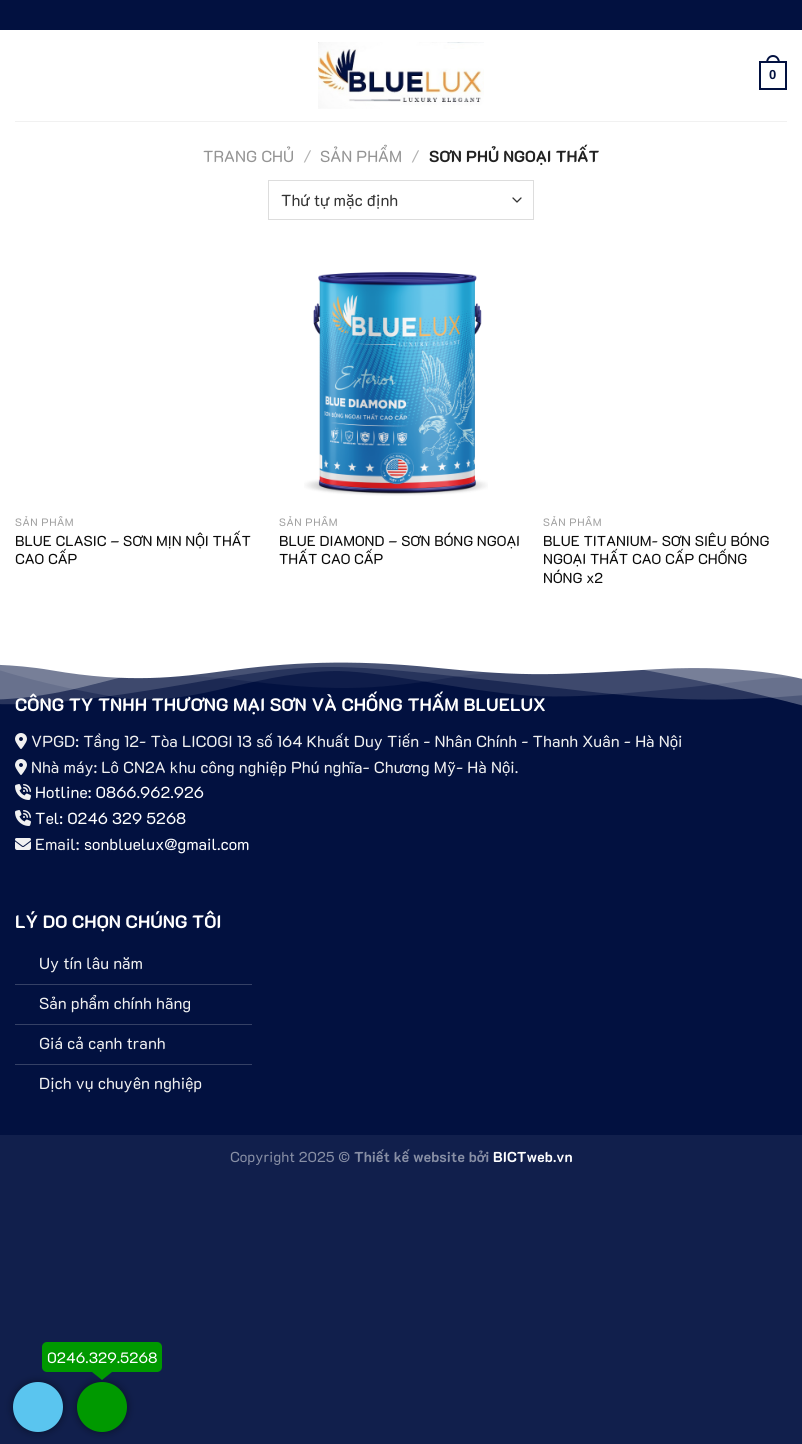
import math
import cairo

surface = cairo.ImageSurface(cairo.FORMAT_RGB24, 802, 1444)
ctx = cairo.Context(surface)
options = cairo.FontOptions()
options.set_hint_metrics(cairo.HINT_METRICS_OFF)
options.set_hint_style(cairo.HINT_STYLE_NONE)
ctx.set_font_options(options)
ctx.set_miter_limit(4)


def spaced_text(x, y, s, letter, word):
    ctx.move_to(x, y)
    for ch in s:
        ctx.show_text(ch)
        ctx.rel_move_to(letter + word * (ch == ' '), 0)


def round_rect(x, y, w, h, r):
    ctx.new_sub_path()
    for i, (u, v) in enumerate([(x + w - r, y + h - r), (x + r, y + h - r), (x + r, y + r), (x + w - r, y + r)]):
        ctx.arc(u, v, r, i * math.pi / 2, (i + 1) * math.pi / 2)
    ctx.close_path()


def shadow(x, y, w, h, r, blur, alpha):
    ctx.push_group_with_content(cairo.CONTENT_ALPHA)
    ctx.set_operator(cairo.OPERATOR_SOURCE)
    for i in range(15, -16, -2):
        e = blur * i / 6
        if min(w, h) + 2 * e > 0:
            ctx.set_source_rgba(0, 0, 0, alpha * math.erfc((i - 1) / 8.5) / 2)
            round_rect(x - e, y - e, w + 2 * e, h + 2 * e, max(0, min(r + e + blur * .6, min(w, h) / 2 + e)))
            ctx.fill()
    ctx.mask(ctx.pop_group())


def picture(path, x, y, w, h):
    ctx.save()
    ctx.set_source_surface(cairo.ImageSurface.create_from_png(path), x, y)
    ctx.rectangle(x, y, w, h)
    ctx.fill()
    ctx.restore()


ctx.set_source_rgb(0.067, 0.122, 0.298)
ctx.paint()
ctx.set_source_rgb(1, 1, 1)
ctx.rectangle(0, 30, 802, 630)
ctx.fill()
ctx.set_source_rgb(0.008, 0.067, 0.251)
ctx.rectangle(0, 0, 802, 30)
ctx.fill()
picture("img1.png", 318, 42, 166, 67)
ctx.rectangle(760, 62, 26, 27)
ctx.stroke()
ctx.set_fill_rule(cairo.FILL_RULE_EVEN_ODD)
ctx.new_path()
ctx.move_to(773, 55)
ctx.curve_to(777.5, 55, 780, 59, 780, 63)
ctx.line_to(766, 63)
ctx.curve_to(766, 59, 768.5, 55, 773, 55)
ctx.close_path()
ctx.move_to(773, 57)
ctx.curve_to(776.5, 57, 778, 60, 778, 63)
ctx.line_to(768, 63)
ctx.curve_to(768, 60, 769.5, 57, 773, 57)
ctx.close_path()
ctx.fill()
ctx.select_font_face("Liberation Sans", cairo.FONT_SLANT_NORMAL, cairo.FONT_WEIGHT_BOLD)
ctx.set_font_size(13)
ctx.move_to(769, 79)
ctx.show_text("0")
ctx.set_source_rgb(0.945, 0.945, 0.945)
ctx.rectangle(15, 121, 772, 1)
ctx.fill()
ctx.select_font_face("K2D")
ctx.set_font_size(16)
ctx.set_source_rgb(0.58, 0.58, 0.58)
ctx.move_to(203, 162)
ctx.show_text("TRANG CHỦ")
ctx.select_font_face("K2D Light")
ctx.set_source_rgb(0.698, 0.698, 0.698)
ctx.move_to(303, 162)
ctx.show_text("/")
ctx.select_font_face("K2D")
ctx.set_source_rgb(0.58, 0.58, 0.58)
ctx.move_to(320, 162)
ctx.show_text("SẢN PHẨM")
ctx.select_font_face("K2D Light")
ctx.set_source_rgb(0.698, 0.698, 0.698)
ctx.move_to(411, 162)
ctx.show_text("/")
ctx.select_font_face("K2D", cairo.FONT_SLANT_NORMAL, cairo.FONT_WEIGHT_BOLD)
ctx.set_source_rgb(0.133, 0.133, 0.133)
ctx.move_to(429, 162)
ctx.show_text("SƠN PHỦ NGOẠI THẤT")
ctx.new_path()
ctx.move_to(513, 198)
ctx.line_to(517, 202)
ctx.line_to(521, 198)
ctx.set_source_rgb(0.2, 0.2, 0.2)
ctx.set_line_width(1.3)
ctx.set_line_cap(cairo.LINE_CAP_ROUND)
ctx.set_line_join(cairo.LINE_JOIN_ROUND)
ctx.stroke()
ctx.rectangle(268.5, 180.5, 265, 39)
ctx.set_source_rgb(0.867, 0.867, 0.867)
ctx.set_line_width(1)
ctx.set_line_cap(cairo.LINE_CAP_BUTT)
ctx.set_line_join(cairo.LINE_JOIN_MITER)
ctx.stroke()
ctx.select_font_face("K2D")
ctx.set_source_rgb(0.2, 0.2, 0.2)
ctx.move_to(281, 206)
ctx.show_text("Thứ tự mặc định")
ctx.save()
ctx.set_fill_rule(cairo.FILL_RULE_WINDING)
ctx.rectangle(15, 516, 244, 13)
ctx.clip()
ctx.set_font_size(10.75)
ctx.set_source_rgb(0.627, 0.627, 0.627)
spaced_text(15, 526, "SẢN PHẨM", 0.5, 0)
ctx.restore()
ctx.set_font_size(14.4)
ctx.set_source_rgb(0.039, 0.039, 0.039)
ctx.move_to(15, 546)
ctx.show_text("BLUE CLASIC – SƠN MỊN NỘI THẤT")
ctx.move_to(15, 564)
ctx.show_text("CAO CẤP")
picture("img2.png", 304, 271, 184, 225)
ctx.save()
ctx.set_fill_rule(cairo.FILL_RULE_WINDING)
ctx.rectangle(279, 516, 244, 13)
ctx.clip()
ctx.set_font_size(10.75)
ctx.set_source_rgb(0.627, 0.627, 0.627)
spaced_text(279, 526, "SẢN PHẨM", 0.5, 0)
ctx.restore()
ctx.move_to(279, 546)
ctx.show_text("BLUE DIAMOND – SƠN BÓNG NGOẠI")
ctx.move_to(279, 564)
ctx.show_text("THẤT CAO CẤP")
ctx.save()
ctx.set_fill_rule(cairo.FILL_RULE_WINDING)
ctx.rectangle(543, 516, 244, 13)
ctx.clip()
ctx.set_font_size(10.75)
ctx.set_source_rgb(0.627, 0.627, 0.627)
spaced_text(543, 526, "SẢN PHẨM", 0.5, 0)
ctx.restore()
ctx.move_to(543, 546)
ctx.show_text("BLUE TITANIUM- SƠN SIÊU BÓNG")
ctx.move_to(543, 564)
ctx.show_text("NGOẠI THẤT CAO CẤP CHỐNG")
ctx.move_to(543, 583)
ctx.show_text("NÓNG x2")
ctx.set_source_rgb(0.008, 0.067, 0.251)
ctx.rectangle(0, 662, 802, 473)
ctx.fill()
picture("img3.png", 0, 660, 802, 46)
ctx.select_font_face("K2D", cairo.FONT_SLANT_NORMAL, cairo.FONT_WEIGHT_BOLD)
ctx.set_font_size(18)
ctx.set_source_rgb(1, 1, 1)
ctx.move_to(15, 711)
ctx.show_text("CÔNG TY TNHH THƯƠNG MẠI SƠN VÀ CHỐNG THẤM BLUELUX")
picture("img4.png", 15, 733, 12, 16)
ctx.select_font_face("K2D")
ctx.set_font_size(16)
ctx.set_source_rgb(0.945, 0.945, 0.945)
ctx.move_to(31, 747)
ctx.show_text("VPGD: Tầng 12- Tòa LICOGI 13 số 164 Khuất Duy Tiến - Nhân Chính - Thanh Xuân - Hà Nội")
picture("img4.png", 15, 759, 12, 16)
ctx.move_to(31, 773)
ctx.show_text("Nhà máy: Lô CN2A khu công nghiệp Phú nghĩa- Chương Mỹ- Hà Nội.")
picture("img5.png", 15, 784, 16, 16)
ctx.set_source_rgb(1, 1, 1)
ctx.move_to(35, 798)
ctx.show_text("Hotline: 0866.962.926")
picture("img5.png", 15, 810, 16, 16)
ctx.move_to(35, 824)
ctx.show_text("Tel: 0246 329 5268")
picture("img6.png", 15, 838, 16, 12)
ctx.set_source_rgb(0.945, 0.945, 0.945)
ctx.move_to(35, 850)
ctx.show_text("Email:")
ctx.set_source_rgb(1, 1, 1)
ctx.move_to(84, 850)
ctx.show_text("sonbluelux@gmail.com")
ctx.select_font_face("K2D", cairo.FONT_SLANT_NORMAL, cairo.FONT_WEIGHT_BOLD)
ctx.set_font_size(18)
ctx.move_to(15, 928)
ctx.show_text("LÝ DO CHỌN CHÚNG TÔI")
ctx.set_source_rgb(0.208, 0.255, 0.4)
ctx.rectangle(15, 984, 237, 1)
ctx.fill()
ctx.select_font_face("K2D")
ctx.set_font_size(16)
ctx.set_source_rgb(0.945, 0.945, 0.945)
ctx.move_to(39, 969)
ctx.show_text("Uy tín lâu năm")
ctx.set_source_rgb(0.208, 0.255, 0.4)
ctx.rectangle(15, 1024, 237, 1)
ctx.fill()
ctx.set_source_rgb(0.945, 0.945, 0.945)
ctx.move_to(39, 1009)
ctx.show_text("Sản phẩm chính hãng")
ctx.set_source_rgb(0.208, 0.255, 0.4)
ctx.rectangle(15, 1064, 237, 1)
ctx.fill()
ctx.set_source_rgb(0.945, 0.945, 0.945)
ctx.move_to(39, 1049)
ctx.show_text("Giá cả cạnh tranh")
ctx.move_to(39, 1089)
ctx.show_text("Dịch vụ chuyên nghiệp")
ctx.set_font_size(14.4)
ctx.set_source_rgb(0.533, 0.561, 0.647)
ctx.move_to(230, 1162)
ctx.show_text("Copyright 2025 ©")
ctx.select_font_face("K2D", cairo.FONT_SLANT_NORMAL, cairo.FONT_WEIGHT_BOLD)
ctx.move_to(354, 1162)
ctx.show_text("Thiết kế website bởi")
ctx.set_source_rgb(1, 1, 1)
ctx.move_to(493, 1162)
ctx.show_text("BICTweb.vn")
ctx.set_source_rgb(0, 0, 0)
shadow(79, 1384, 46, 46, 23, 5, 0.7)
shadow(15, 1384, 46, 46, 23, 5, 0.7)
ctx.set_source_rgb(0, 0.6, 0)
round_rect(42, 1342, 120, 30, 5)
ctx.fill()
ctx.select_font_face("K2D")
ctx.set_font_size(15)
ctx.set_source_rgb(1, 1, 1)
ctx.move_to(47, 1363)
ctx.show_text("0246.329.5268")
ctx.set_source_rgb(0, 0.6, 0)
ctx.set_fill_rule(cairo.FILL_RULE_WINDING)
ctx.new_path()
ctx.move_to(92, 1372)
ctx.line_to(112, 1372)
ctx.line_to(102, 1380)
ctx.close_path()
ctx.fill()
ctx.arc(102, 1407, 25, 0, 2 * math.pi)
ctx.fill()
ctx.set_source_rgb(0.353, 0.773, 0.937)
ctx.arc(38, 1407, 25, 0, 2 * math.pi)
ctx.fill()
surface.write_to_png("page.png")
